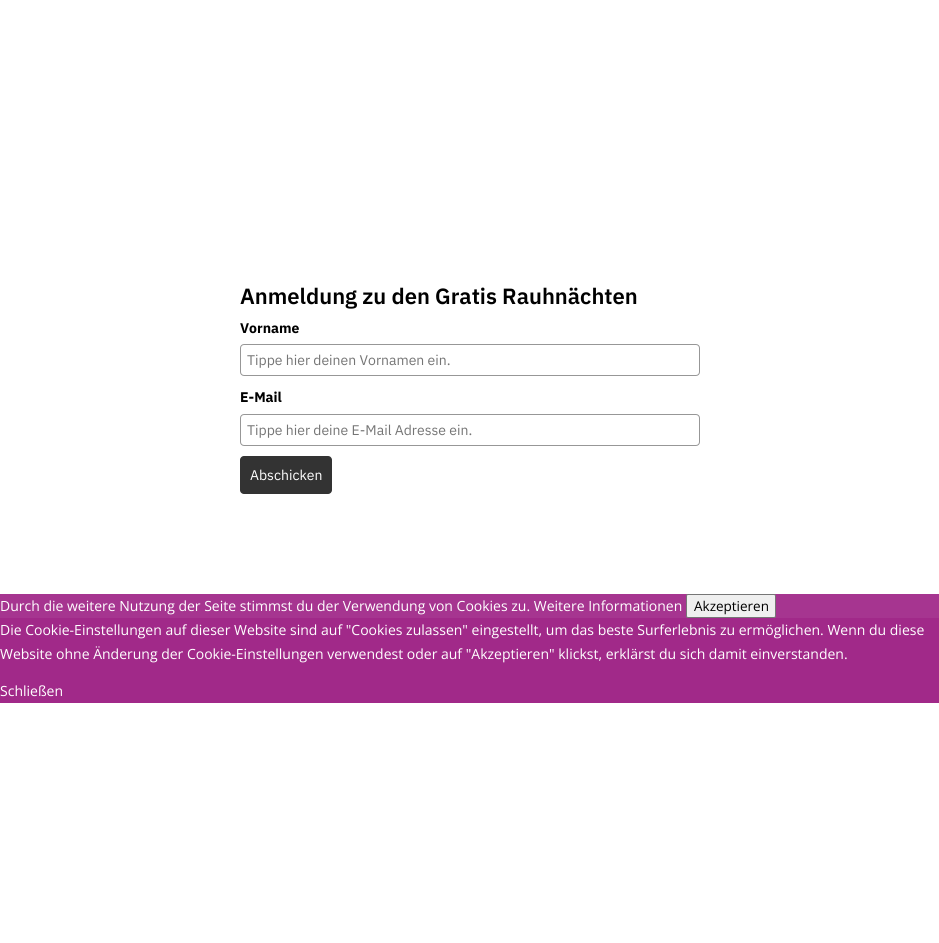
import math
import cairo

surface = cairo.ImageSurface(cairo.FORMAT_RGB24, 939, 943)
ctx = cairo.Context(surface)
options = cairo.FontOptions()
options.set_hint_metrics(cairo.HINT_METRICS_OFF)
options.set_hint_style(cairo.HINT_STYLE_NONE)
ctx.set_font_options(options)
ctx.set_miter_limit(4)


def round_rect(x, y, w, h, r):
    ctx.new_sub_path()
    for i, (u, v) in enumerate([(x + w - r, y + h - r), (x + r, y + h - r), (x + r, y + r), (x + w - r, y + r)]):
        ctx.arc(u, v, r, i * math.pi / 2, (i + 1) * math.pi / 2)
    ctx.close_path()


ctx.set_source_rgb(1, 1, 1)
ctx.paint()
ctx.select_font_face("IBM Plex Sans SemiBold")
ctx.set_font_size(22)
ctx.set_source_rgb(0, 0, 0)
ctx.move_to(240, 304)
ctx.show_text("Anmeldung zu den Gratis Rauhnächten")
ctx.select_font_face("IBM Plex Sans", cairo.FONT_SLANT_NORMAL, cairo.FONT_WEIGHT_BOLD)
ctx.set_font_size(14)
ctx.move_to(240, 333)
ctx.show_text("Vorname")
round_rect(240.5, 344.5, 459, 31, 3.5)
ctx.set_source_rgb(0.592, 0.592, 0.592)
ctx.set_line_width(1)
ctx.stroke()
ctx.select_font_face("IBM Plex Sans")
ctx.set_source_rgb(0.459, 0.459, 0.459)
ctx.move_to(247, 365)
ctx.show_text("Tippe hier deinen Vornamen ein.")
ctx.select_font_face("IBM Plex Sans", cairo.FONT_SLANT_NORMAL, cairo.FONT_WEIGHT_BOLD)
ctx.set_source_rgb(0, 0, 0)
ctx.move_to(240, 402)
ctx.show_text("E-Mail")
round_rect(240.5, 414.5, 459, 31, 3.5)
ctx.set_source_rgb(0.592, 0.592, 0.592)
ctx.stroke()
ctx.select_font_face("IBM Plex Sans")
ctx.set_source_rgb(0.459, 0.459, 0.459)
ctx.move_to(247, 435)
ctx.show_text("Tippe hier deine E-Mail Adresse ein.")
ctx.set_source_rgb(0.2, 0.2, 0.2)
round_rect(240, 456, 92, 38, 4)
ctx.fill()
ctx.set_source_rgb(1, 1, 1)
ctx.move_to(250, 480)
ctx.show_text("Abschicken")
ctx.set_source_rgb(0.651, 0.208, 0.565)
ctx.rectangle(0, 594, 939, 24)
ctx.fill()
ctx.select_font_face("Open Sans")
ctx.set_source_rgb(1, 1, 1)
ctx.move_to(0, 611)
ctx.show_text("Durch die weitere Nutzung der Seite stimmst du der Verwendung von Cookies zu. Weitere Informationen")
ctx.set_source_rgb(0.937, 0.937, 0.937)
round_rect(686.5, 594.5, 89, 23, 1.5)
ctx.fill_preserve()
ctx.set_source_rgb(0.463, 0.463, 0.463)
ctx.stroke()
ctx.set_font_size(13.5)
ctx.set_source_rgb(0, 0, 0)
ctx.move_to(694, 611)
ctx.show_text("Akzeptieren")
ctx.set_source_rgb(0.631, 0.161, 0.537)
ctx.rectangle(0, 618, 939, 85)
ctx.fill()
ctx.set_font_size(14)
ctx.set_source_rgb(1, 1, 1)
ctx.move_to(0, 635)
ctx.show_text("Die Cookie-Einstellungen auf dieser Website sind auf \"Cookies zulassen\" eingestellt, um das beste Surferlebnis zu ermöglichen. Wenn du diese")
ctx.move_to(0, 659)
ctx.show_text("Website ohne Änderung der Cookie-Einstellungen verwendest oder auf \"Akzeptieren\" klickst, erklärst du sich damit einverstanden.")
ctx.move_to(0, 696)
ctx.show_text("Schließen")
surface.write_to_png("page.png")
